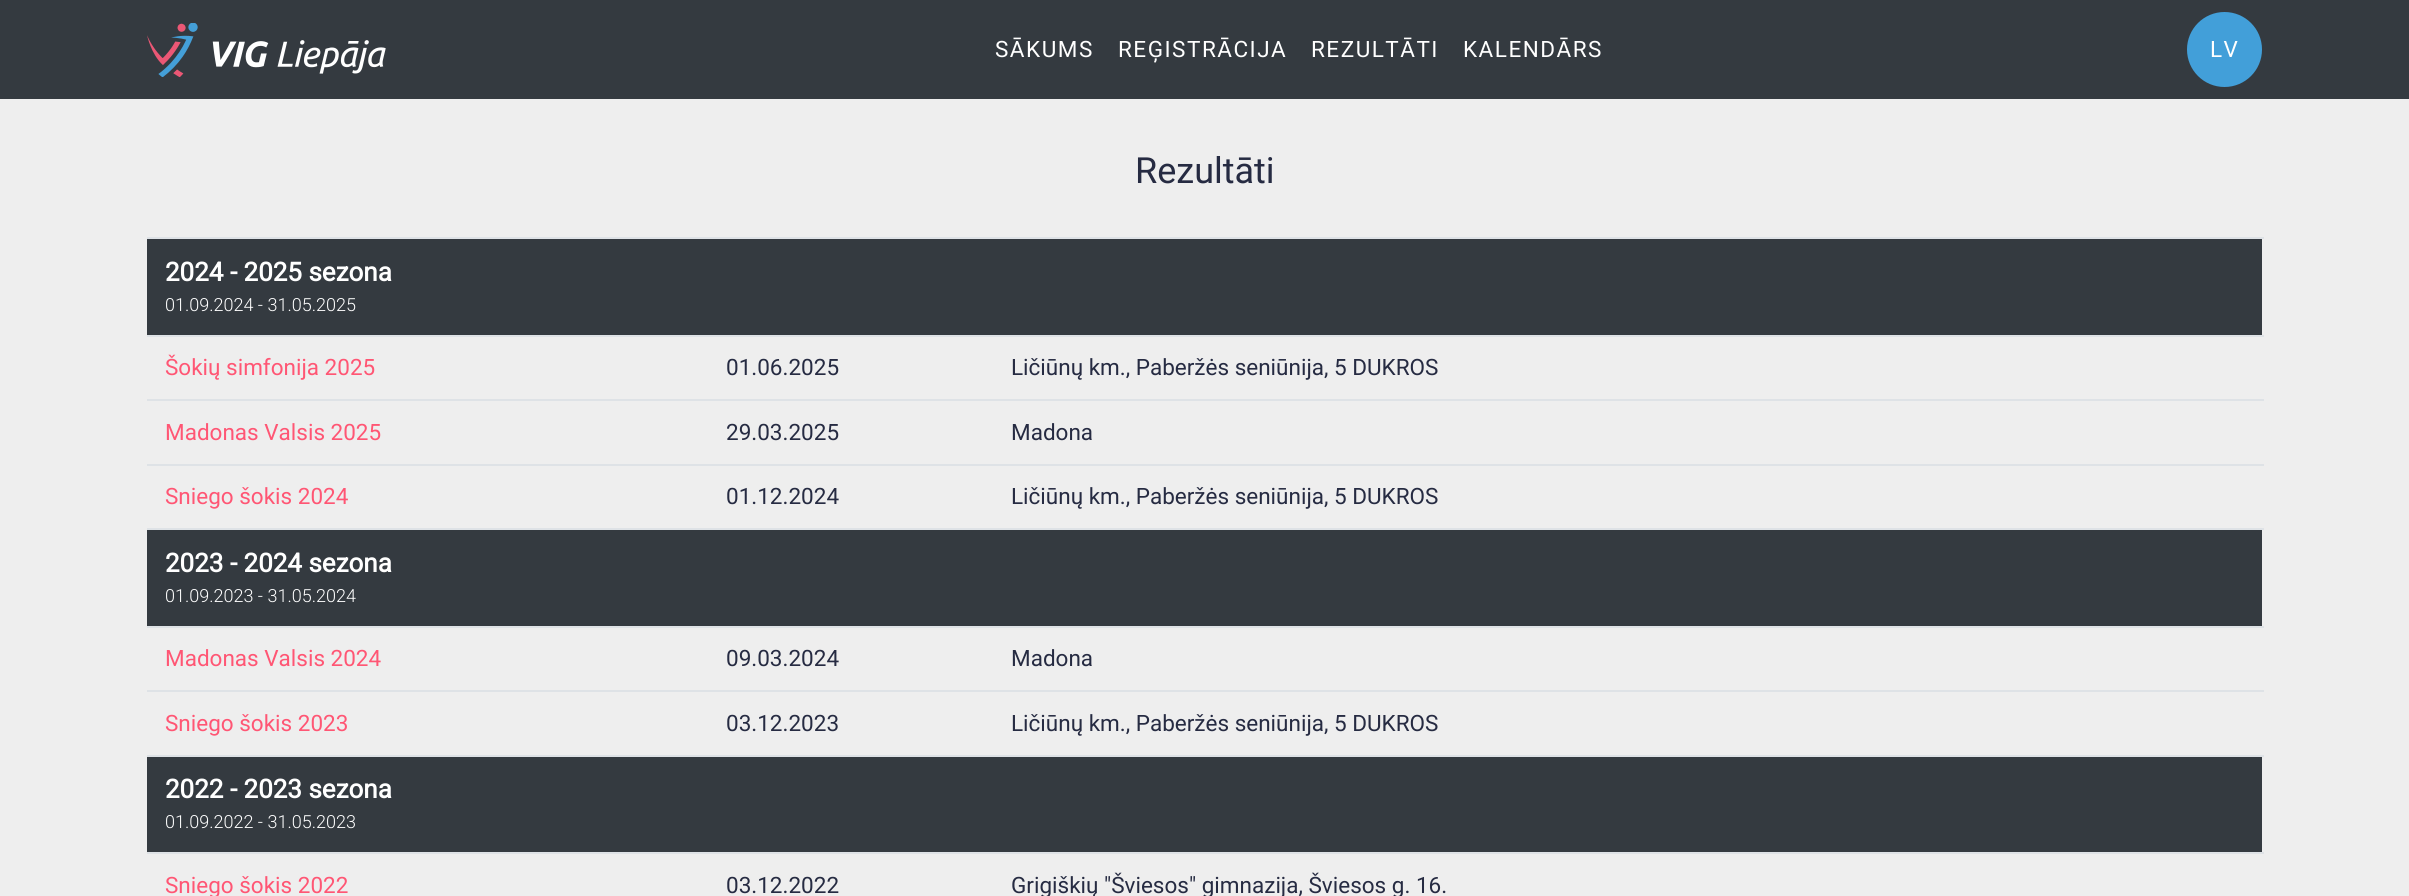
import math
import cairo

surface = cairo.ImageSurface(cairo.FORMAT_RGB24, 2409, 896)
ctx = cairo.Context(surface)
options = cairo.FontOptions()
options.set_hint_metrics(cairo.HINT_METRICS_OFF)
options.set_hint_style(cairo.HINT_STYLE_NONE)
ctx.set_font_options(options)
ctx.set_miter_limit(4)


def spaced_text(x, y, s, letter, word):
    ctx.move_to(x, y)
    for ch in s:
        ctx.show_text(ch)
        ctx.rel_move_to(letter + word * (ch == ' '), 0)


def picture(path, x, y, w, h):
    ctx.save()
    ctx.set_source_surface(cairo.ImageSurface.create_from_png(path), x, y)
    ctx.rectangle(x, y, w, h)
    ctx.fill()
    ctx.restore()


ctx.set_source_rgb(0.933, 0.933, 0.933)
ctx.paint()
ctx.set_source_rgb(0.204, 0.227, 0.251)
ctx.rectangle(0, 0, 2409, 99)
ctx.fill()
picture("img1.png", 147, 23, 239, 54)
ctx.select_font_face("Roboto")
ctx.set_font_size(22.5)
ctx.set_source_rgb(1, 1, 1)
spaced_text(995, 57, "SĀKUMS", 1.5, 0)
spaced_text(1118, 57, "REĢISTRĀCIJA", 1.5, 0)
spaced_text(1311, 57, "REZULTĀTI", 1.5, 0)
spaced_text(1463, 57, "KALENDĀRS", 1.5, 0)
ctx.set_source_rgb(0.259, 0.624, 0.851)
ctx.new_path()
ctx.arc(2224.5, 49.5, 35, 0, 2 * math.pi)
ctx.fill_preserve()
ctx.set_line_width(5)
ctx.stroke()
ctx.set_source_rgb(1, 1, 1)
spaced_text(2210, 57, "LV", 1.5, 0)
ctx.set_font_size(36)
ctx.set_source_rgb(0.149, 0.169, 0.259)
ctx.move_to(1135, 183)
ctx.show_text("Rezultāti")
ctx.set_source_rgb(0.204, 0.227, 0.251)
ctx.rectangle(147, 239, 2115, 96)
ctx.fill()
ctx.set_source_rgb(0.871, 0.886, 0.902)
ctx.rectangle(147, 237, 2117, 2)
ctx.fill()
ctx.select_font_face("Roboto", cairo.FONT_SLANT_NORMAL, cairo.FONT_WEIGHT_BOLD)
ctx.set_font_size(26)
ctx.set_source_rgb(1, 1, 1)
ctx.move_to(165, 281)
ctx.show_text("2024 - 2025 sezona")
ctx.select_font_face("Roboto Light")
ctx.set_font_size(18)
ctx.move_to(165, 311)
ctx.show_text("01.09.2024 - 31.05.2025")
ctx.set_source_rgb(0.871, 0.886, 0.902)
ctx.rectangle(147, 335, 2117, 2)
ctx.fill()
ctx.select_font_face("Roboto")
ctx.set_font_size(22.5)
ctx.set_source_rgb(1, 0.337, 0.455)
ctx.move_to(165, 375)
ctx.show_text("Šokių simfonija 2025")
ctx.set_source_rgb(0.149, 0.169, 0.259)
ctx.move_to(726, 375)
ctx.show_text("01.06.2025")
ctx.move_to(1011, 375)
ctx.show_text("Ličiūnų km., Paberžės seniūnija, 5 DUKROS")
ctx.set_source_rgb(0.871, 0.886, 0.902)
ctx.rectangle(147, 399, 2117, 2)
ctx.fill()
ctx.set_source_rgb(1, 0.337, 0.455)
ctx.move_to(165, 440)
ctx.show_text("Madonas Valsis 2025")
ctx.set_source_rgb(0.149, 0.169, 0.259)
ctx.move_to(726, 440)
ctx.show_text("29.03.2025")
ctx.move_to(1011, 440)
ctx.show_text("Madona")
ctx.set_source_rgb(0.871, 0.886, 0.902)
ctx.rectangle(147, 464, 2117, 2)
ctx.fill()
ctx.set_source_rgb(1, 0.337, 0.455)
ctx.move_to(165, 504)
ctx.show_text("Sniego šokis 2024")
ctx.set_source_rgb(0.149, 0.169, 0.259)
ctx.move_to(726, 504)
ctx.show_text("01.12.2024")
ctx.move_to(1011, 504)
ctx.show_text("Ličiūnų km., Paberžės seniūnija, 5 DUKROS")
ctx.set_source_rgb(0.204, 0.227, 0.251)
ctx.rectangle(147, 530, 2115, 96)
ctx.fill()
ctx.set_source_rgb(0.871, 0.886, 0.902)
ctx.rectangle(147, 528, 2117, 2)
ctx.fill()
ctx.select_font_face("Roboto", cairo.FONT_SLANT_NORMAL, cairo.FONT_WEIGHT_BOLD)
ctx.set_font_size(26)
ctx.set_source_rgb(1, 1, 1)
ctx.move_to(165, 572)
ctx.show_text("2023 - 2024 sezona")
ctx.select_font_face("Roboto Light")
ctx.set_font_size(18)
ctx.move_to(165, 602)
ctx.show_text("01.09.2023 - 31.05.2024")
ctx.set_source_rgb(0.871, 0.886, 0.902)
ctx.rectangle(147, 626, 2117, 2)
ctx.fill()
ctx.select_font_face("Roboto")
ctx.set_font_size(22.5)
ctx.set_source_rgb(1, 0.337, 0.455)
ctx.move_to(165, 666)
ctx.show_text("Madonas Valsis 2024")
ctx.set_source_rgb(0.149, 0.169, 0.259)
ctx.move_to(726, 666)
ctx.show_text("09.03.2024")
ctx.move_to(1011, 666)
ctx.show_text("Madona")
ctx.set_source_rgb(0.871, 0.886, 0.902)
ctx.rectangle(147, 690, 2117, 2)
ctx.fill()
ctx.set_source_rgb(1, 0.337, 0.455)
ctx.move_to(165, 731)
ctx.show_text("Sniego šokis 2023")
ctx.set_source_rgb(0.149, 0.169, 0.259)
ctx.move_to(726, 731)
ctx.show_text("03.12.2023")
ctx.move_to(1011, 731)
ctx.show_text("Ličiūnų km., Paberžės seniūnija, 5 DUKROS")
ctx.set_source_rgb(0.204, 0.227, 0.251)
ctx.rectangle(147, 757, 2115, 95)
ctx.fill()
ctx.set_source_rgb(0.871, 0.886, 0.902)
ctx.rectangle(147, 755, 2117, 2)
ctx.fill()
ctx.select_font_face("Roboto", cairo.FONT_SLANT_NORMAL, cairo.FONT_WEIGHT_BOLD)
ctx.set_font_size(26)
ctx.set_source_rgb(1, 1, 1)
ctx.move_to(165, 798)
ctx.show_text("2022 - 2023 sezona")
ctx.select_font_face("Roboto Light")
ctx.set_font_size(18)
ctx.move_to(165, 828)
ctx.show_text("01.09.2022 - 31.05.2023")
ctx.set_source_rgb(0.871, 0.886, 0.902)
ctx.rectangle(147, 852, 2117, 2)
ctx.fill()
ctx.select_font_face("Roboto")
ctx.set_font_size(22.5)
ctx.set_source_rgb(1, 0.337, 0.455)
ctx.move_to(165, 893)
ctx.show_text("Sniego šokis 2022")
ctx.set_source_rgb(0.149, 0.169, 0.259)
ctx.move_to(726, 893)
ctx.show_text("03.12.2022")
ctx.move_to(1011, 893)
ctx.show_text("Grigiškių \"Šviesos\" gimnazija, Šviesos g. 16.")
surface.write_to_png("page.png")
